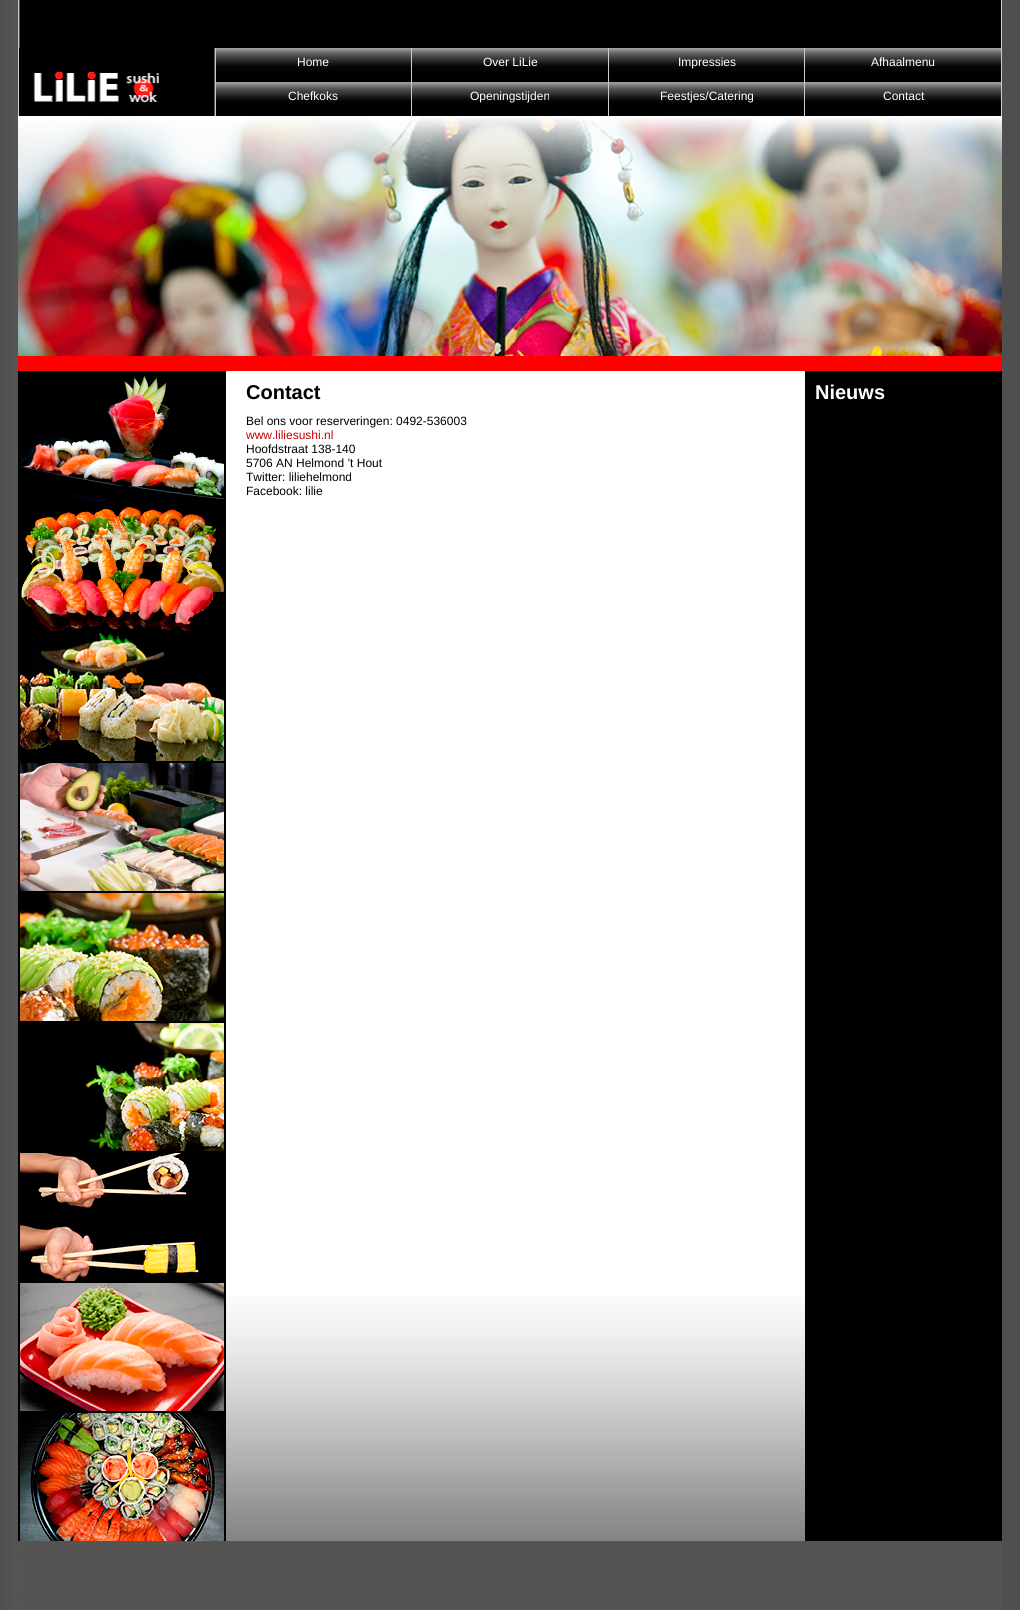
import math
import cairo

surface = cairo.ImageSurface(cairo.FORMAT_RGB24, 1020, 1610)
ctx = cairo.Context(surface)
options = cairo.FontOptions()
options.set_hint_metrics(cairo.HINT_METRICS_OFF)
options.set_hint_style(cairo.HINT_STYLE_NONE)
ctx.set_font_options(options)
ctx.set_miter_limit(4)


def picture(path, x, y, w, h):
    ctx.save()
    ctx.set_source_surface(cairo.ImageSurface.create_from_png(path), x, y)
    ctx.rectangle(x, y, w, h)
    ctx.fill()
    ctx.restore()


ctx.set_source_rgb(1, 1, 1)
ctx.paint()
picture("img1.png", 0, 0, 1020, 1610)
ctx.set_source_rgb(0, 0, 0)
ctx.rectangle(20, 0, 981, 48)
ctx.fill()
ctx.rectangle(159, 48, 55, 68)
ctx.fill()
picture("img2.png", 19, 48, 140, 68)
ctx.set_source_rgb(0.8, 0.8, 0.8)
ctx.rectangle(18, 0, 1, 117)
ctx.fill()
picture("img3.png", 216, 48, 195, 34)
ctx.select_font_face("Liberation Sans")
ctx.set_font_size(12)
ctx.set_source_rgb(1, 1, 1)
ctx.move_to(297, 66)
ctx.show_text("Home")
picture("img4.png", 412, 48, 196, 34)
ctx.move_to(483, 66)
ctx.show_text("Over LiLie")
picture("img3.png", 609, 48, 195, 34)
ctx.move_to(678, 66)
ctx.show_text("Impressies")
picture("img4.png", 805, 48, 196, 34)
ctx.move_to(871, 66)
ctx.show_text("Afhaalmenu")
ctx.set_source_rgb(0.8, 0.8, 0.8)
ctx.rectangle(215, 48, 1, 69)
ctx.fill()
picture("img3.png", 216, 82, 195, 34)
ctx.set_source_rgb(1, 1, 1)
ctx.move_to(288, 100)
ctx.show_text("Chefkoks")
ctx.set_source_rgb(0.8, 0.8, 0.8)
ctx.rectangle(411, 48, 1, 69)
ctx.fill()
picture("img4.png", 412, 82, 196, 34)
ctx.set_source_rgb(1, 1, 1)
ctx.move_to(470, 100)
ctx.show_text("Openingstijden")
ctx.set_source_rgb(0.8, 0.8, 0.8)
ctx.rectangle(608, 48, 1, 69)
ctx.fill()
picture("img3.png", 609, 82, 195, 34)
ctx.set_source_rgb(1, 1, 1)
ctx.move_to(660, 100)
ctx.show_text("Feestjes/Catering")
ctx.set_source_rgb(0.8, 0.8, 0.8)
ctx.rectangle(1001, 0, 1, 117)
ctx.fill()
ctx.rectangle(804, 48, 1, 69)
ctx.fill()
picture("img4.png", 805, 82, 196, 34)
ctx.set_source_rgb(1, 1, 1)
ctx.move_to(883, 100)
ctx.show_text("Contact")
picture("img5.png", 18, 116, 984, 240)
ctx.set_source_rgb(1, 0, 0)
ctx.rectangle(18, 356, 984, 15)
ctx.fill()
ctx.set_source_rgb(1, 1, 1)
ctx.rectangle(226, 371, 579, 925)
ctx.fill()
picture("img6.png", 226, 1296, 579, 245)
ctx.set_source_rgb(0, 0, 0)
ctx.rectangle(18, 371, 208, 1170)
ctx.fill()
picture("img7.png", 20, 375, 204, 126)
picture("img8.png", 21, 507, 203, 124)
picture("img9.png", 20, 633, 204, 128)
picture("img10.png", 20, 763, 204, 128)
picture("img11.png", 20, 893, 204, 128)
picture("img12.png", 86, 1023, 138, 128)
picture("img13.png", 20, 1153, 179, 128)
picture("img14.png", 20, 1283, 204, 128)
picture("img15.png", 20, 1413, 204, 128)
ctx.select_font_face("Liberation Sans", cairo.FONT_SLANT_NORMAL, cairo.FONT_WEIGHT_BOLD)
ctx.set_font_size(20)
ctx.move_to(246, 399)
ctx.show_text("Contact")
ctx.select_font_face("Liberation Sans")
ctx.set_font_size(12)
ctx.move_to(246, 425)
ctx.show_text("Bel ons voor reserveringen: 0492-536003")
ctx.set_source_rgb(0.8, 0, 0)
ctx.move_to(246, 439)
ctx.show_text("www.liliesushi.nl")
ctx.set_source_rgb(0, 0, 0)
ctx.move_to(246, 453)
ctx.show_text("Hoofdstraat 138-140")
ctx.move_to(246, 467)
ctx.show_text("5706 AN Helmond ’t Hout")
ctx.move_to(246, 481)
ctx.show_text("Twitter: liliehelmond")
ctx.move_to(246, 495)
ctx.show_text("Facebook: lilie")
ctx.rectangle(805, 371, 197, 1170)
ctx.fill()
ctx.select_font_face("Liberation Sans", cairo.FONT_SLANT_NORMAL, cairo.FONT_WEIGHT_BOLD)
ctx.set_font_size(20)
ctx.set_source_rgb(1, 1, 1)
ctx.move_to(815, 399)
ctx.show_text("Nieuws")
surface.write_to_png("page.png")
